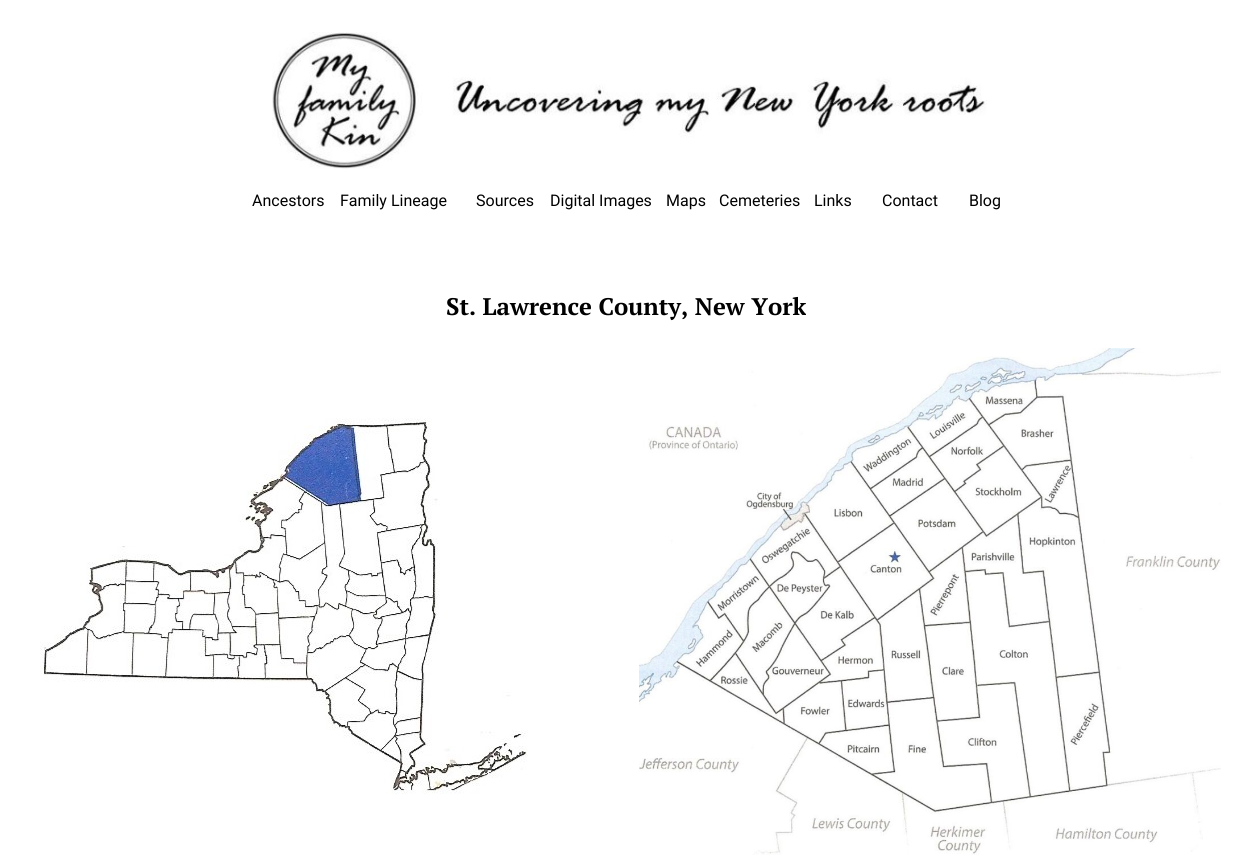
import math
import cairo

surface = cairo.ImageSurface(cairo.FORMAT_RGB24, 1253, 857)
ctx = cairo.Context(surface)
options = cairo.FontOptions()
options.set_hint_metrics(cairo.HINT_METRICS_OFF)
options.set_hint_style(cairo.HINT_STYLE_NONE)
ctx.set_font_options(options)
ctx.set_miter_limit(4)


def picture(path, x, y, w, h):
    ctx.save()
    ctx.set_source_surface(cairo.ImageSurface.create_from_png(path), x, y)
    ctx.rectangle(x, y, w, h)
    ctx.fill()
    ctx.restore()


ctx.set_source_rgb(1, 1, 1)
ctx.paint()
picture("img1.png", 272, 32, 715, 137)
ctx.select_font_face("Roboto")
ctx.set_font_size(16)
ctx.set_source_rgb(0, 0, 0)
ctx.move_to(252, 206)
ctx.show_text("Ancestors")
ctx.move_to(340, 206)
ctx.show_text("Family Lineage")
ctx.move_to(476, 206)
ctx.show_text("Sources")
ctx.move_to(550, 206)
ctx.show_text("Digital Images")
ctx.move_to(666, 206)
ctx.show_text("Maps")
ctx.move_to(719, 206)
ctx.show_text("Cemeteries")
ctx.move_to(814, 206)
ctx.show_text("Links")
ctx.move_to(882, 206)
ctx.show_text("Contact")
ctx.move_to(969, 206)
ctx.show_text("Blog")
ctx.select_font_face("PT Serif", cairo.FONT_SLANT_NORMAL, cairo.FONT_WEIGHT_BOLD)
ctx.set_font_size(24)
ctx.move_to(446, 315)
ctx.show_text("St. Lawrence County, New York")
picture("img2.png", 40, 418, 488, 376)
picture("img3.png", 639, 348, 582, 507)
surface.write_to_png("page.png")
